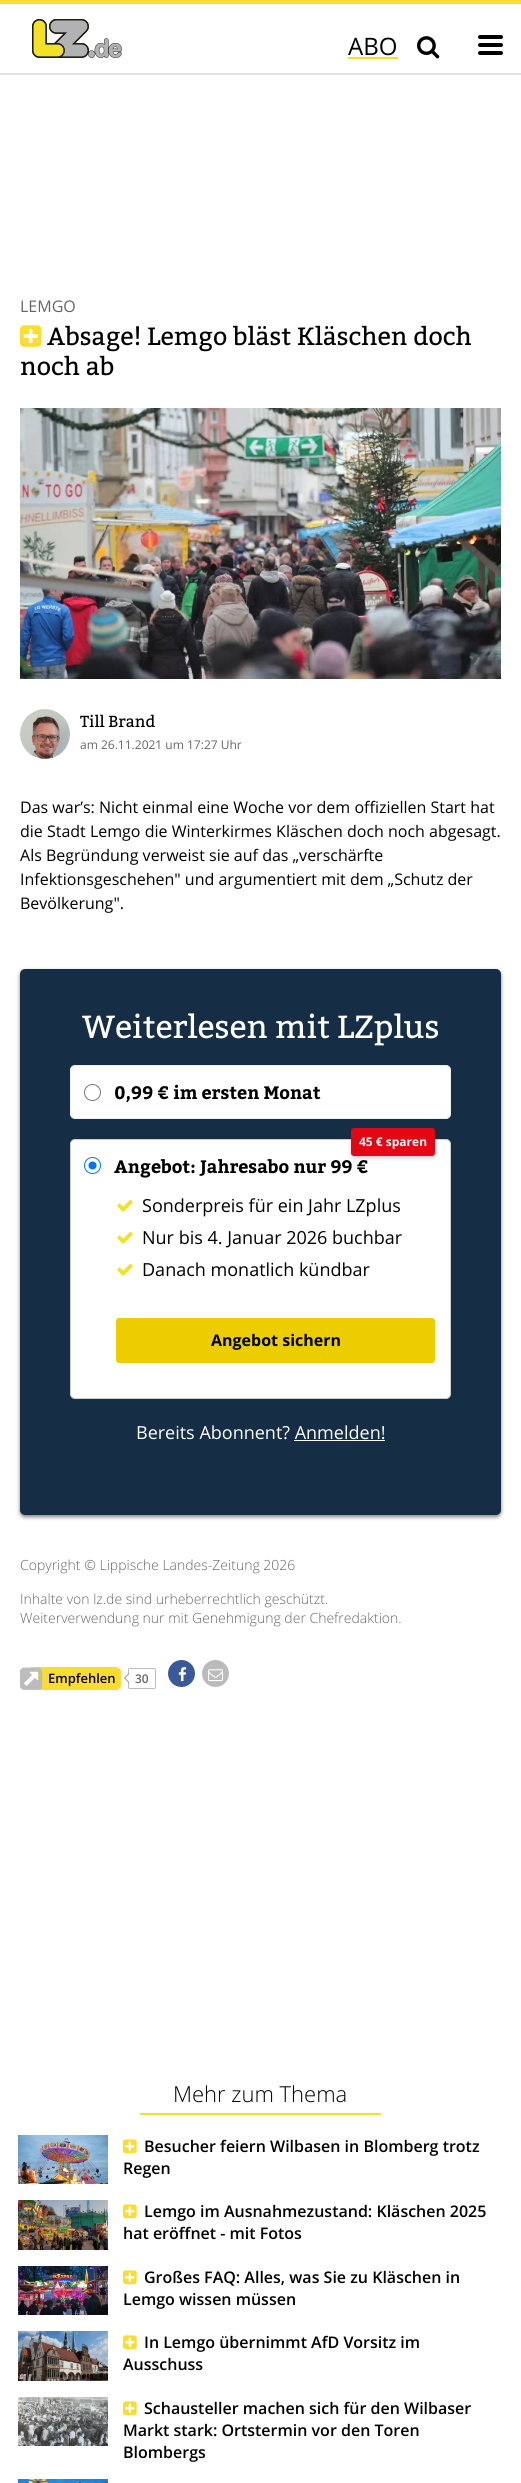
import math
import cairo

surface = cairo.ImageSurface(cairo.FORMAT_RGB24, 521, 2483)
ctx = cairo.Context(surface)
options = cairo.FontOptions()
options.set_hint_metrics(cairo.HINT_METRICS_OFF)
options.set_hint_style(cairo.HINT_STYLE_NONE)
ctx.set_font_options(options)
ctx.set_miter_limit(4)


def round_rect(x, y, w, h, r):
    ctx.new_sub_path()
    for i, (u, v) in enumerate([(x + w - r, y + h - r), (x + r, y + h - r), (x + r, y + r), (x + w - r, y + r)]):
        ctx.arc(u, v, r, i * math.pi / 2, (i + 1) * math.pi / 2)
    ctx.close_path()


def shadow(x, y, w, h, r, blur, alpha):
    ctx.push_group_with_content(cairo.CONTENT_ALPHA)
    ctx.set_operator(cairo.OPERATOR_SOURCE)
    for i in range(15, -16, -2):
        e = blur * i / 6
        if min(w, h) + 2 * e > 0:
            ctx.set_source_rgba(0, 0, 0, alpha * math.erfc((i - 1) / 8.5) / 2)
            round_rect(x - e, y - e, w + 2 * e, h + 2 * e, max(0, min(r + e + blur * .6, min(w, h) / 2 + e)))
            ctx.fill()
    ctx.mask(ctx.pop_group())


def picture(path, x, y, w, h):
    ctx.save()
    ctx.set_source_surface(cairo.ImageSurface.create_from_png(path), x, y)
    ctx.rectangle(x, y, w, h)
    ctx.fill()
    ctx.restore()


ctx.set_source_rgb(1, 1, 1)
ctx.paint()
ctx.set_source_rgb(0.984, 0.867, 0.196)
ctx.rectangle(0, 0, 521, 4)
ctx.fill()
ctx.set_source_rgb(0.89, 0.89, 0.89)
ctx.rectangle(0, 73, 521, 2)
ctx.fill()
picture("img1.png", 32, 19, 90, 39)
ctx.select_font_face("Open Sans")
ctx.set_font_size(24)
ctx.set_source_rgb(0, 0, 0)
ctx.move_to(348, 55)
ctx.show_text("ABO")
ctx.set_source_rgb(0.953, 0.882, 0.149)
ctx.rectangle(348, 57, 50, 2)
ctx.fill()
picture("img2.png", 417, 36, 23, 23)
ctx.set_source_rgb(0, 0, 0)
round_rect(478, 35, 25, 4, 2)
ctx.fill()
round_rect(478, 43, 25, 4, 2)
ctx.fill()
round_rect(478, 51, 25, 4, 2)
ctx.fill()
ctx.set_font_size(16)
ctx.set_source_rgb(0.4, 0.4, 0.4)
ctx.move_to(20, 312)
ctx.show_text("LEMGO")
picture("img3.png", 20, 325, 22, 22)
ctx.select_font_face("Bitter")
ctx.set_font_size(25)
ctx.set_source_rgb(0, 0, 0)
ctx.move_to(47, 345)
ctx.show_text("Absage! Lemgo bläst Kläschen doch")
ctx.move_to(20, 375)
ctx.show_text("noch ab")
picture("img4.png", 20, 408, 481, 271)
picture("img5.png", 20, 709, 50, 50)
ctx.set_font_size(16)
ctx.move_to(80, 727)
ctx.show_text("Till Brand")
ctx.select_font_face("Open Sans")
ctx.set_font_size(12)
ctx.set_source_rgb(0.4, 0.4, 0.4)
ctx.move_to(80, 749)
ctx.show_text("am 26.11.2021 um 17:27 Uhr")
ctx.set_font_size(16)
ctx.set_source_rgb(0, 0, 0)
ctx.move_to(20, 813)
ctx.show_text("Das war’s: Nicht einmal eine Woche vor dem offiziellen Start hat")
ctx.move_to(20, 837)
ctx.show_text("die Stadt Lemgo die Winterkirmes Kläschen doch noch abgesagt.")
ctx.move_to(20, 861)
ctx.show_text("Als Begründung verweist sie auf das „verschärfte")
ctx.move_to(20, 885)
ctx.show_text("Infektionsgeschehen\" und argumentiert mit dem „Schutz der")
ctx.move_to(20, 909)
ctx.show_text("Bevölkerung\".")
ctx.set_source_rgb(0, 0, 0)
shadow(20, 971, 481, 546, 5, 2, 0.5)
ctx.set_source_rgb(0.086, 0.18, 0.271)
round_rect(20, 969, 481, 546, 5)
ctx.fill()
ctx.select_font_face("Bitter")
ctx.set_font_size(32)
ctx.set_source_rgb(1, 1, 1)
ctx.move_to(82, 1038)
ctx.show_text("Weiterlesen mit LZplus")
round_rect(70.5, 1065.5, 380, 53, 4.5)
ctx.fill_preserve()
ctx.set_source_rgb(0.933, 0.933, 0.933)
ctx.set_line_width(1)
ctx.stroke()
ctx.arc(92.5, 1092.5, 8, 0, 2 * math.pi)
ctx.set_source_rgb(0.463, 0.463, 0.463)
ctx.stroke()
ctx.select_font_face("Bitter", cairo.FONT_SLANT_NORMAL, cairo.FONT_WEIGHT_BOLD)
ctx.set_font_size(18)
ctx.set_source_rgb(0, 0, 0)
ctx.move_to(114, 1099)
ctx.show_text("0,99 € im ersten Monat")
ctx.set_source_rgb(1, 1, 1)
round_rect(70.5, 1139.5, 380, 259, 4.5)
ctx.fill_preserve()
ctx.set_source_rgb(0.8, 0.8, 0.8)
ctx.stroke()
ctx.set_source_rgb(0, 0, 0)
shadow(351, 1130, 84, 28, 3, 2, 0.2)
ctx.set_source_rgb(0.89, 0.024, 0.075)
round_rect(351, 1128, 84, 28, 3)
ctx.fill()
ctx.select_font_face("Open Sans", cairo.FONT_SLANT_NORMAL, cairo.FONT_WEIGHT_BOLD)
ctx.set_font_size(12)
ctx.set_source_rgb(1, 1, 1)
ctx.move_to(359, 1146)
ctx.show_text("45 € sparen")
ctx.new_path()
ctx.arc(92.5, 1165.5, 8, 0, 2 * math.pi)
ctx.set_source_rgb(0, 0.459, 1)
ctx.stroke()
ctx.arc(92.5, 1165.5, 4, 0, 2 * math.pi)
ctx.fill()
ctx.select_font_face("Bitter", cairo.FONT_SLANT_NORMAL, cairo.FONT_WEIGHT_BOLD)
ctx.set_font_size(18)
ctx.set_source_rgb(0, 0, 0)
ctx.move_to(114, 1173)
ctx.show_text("Angebot: Jahresabo nur 99 €")
picture("img6.png", 117, 1199, 16, 13)
ctx.select_font_face("Open Sans")
ctx.move_to(142, 1212)
ctx.show_text("Sonderpreis für ein Jahr LZplus")
picture("img6.png", 117, 1231, 16, 13)
ctx.move_to(142, 1244)
ctx.show_text("Nur bis 4. Januar 2026 buchbar")
picture("img6.png", 117, 1263, 16, 13)
ctx.move_to(142, 1276)
ctx.show_text("Danach monatlich kündbar")
ctx.set_source_rgb(0.922, 0.804, 0)
round_rect(116, 1318, 319, 45, 3)
ctx.fill()
ctx.select_font_face("Open Sans", cairo.FONT_SLANT_NORMAL, cairo.FONT_WEIGHT_BOLD)
ctx.set_font_size(16)
ctx.set_source_rgb(0, 0, 0)
ctx.move_to(211, 1346)
ctx.show_text("Angebot sichern")
ctx.select_font_face("Open Sans")
ctx.set_font_size(18)
ctx.set_source_rgb(1, 1, 1)
ctx.move_to(136, 1439)
ctx.show_text("Bereits Abonnent? Anmelden!")
ctx.rectangle(294, 1440, 91, 1)
ctx.fill()
ctx.select_font_face("Open Sans Light")
ctx.set_font_size(14)
ctx.set_source_rgb(0.4, 0.4, 0.4)
ctx.move_to(20, 1570)
ctx.show_text("Copyright © Lippische Landes-Zeitung 2026")
ctx.move_to(20, 1604)
ctx.show_text("Inhalte von lz.de sind urheberrechtlich geschützt.")
ctx.move_to(20, 1623)
ctx.show_text("Weiterverwendung nur mit Genehmigung der Chefredaktion.")
ctx.set_source_rgb(0.984, 0.867, 0.196)
round_rect(28, 1667, 93, 23, 5)
ctx.fill()
ctx.set_source_rgb(1, 1, 1)
ctx.rectangle(28, 1672, 10, 13)
ctx.fill()
picture("img7.png", 20, 1667, 23, 23)
ctx.select_font_face("Open Sans SemiBold")
ctx.set_font_size(13)
ctx.set_source_rgb(0, 0, 0)
ctx.move_to(48, 1683)
ctx.show_text("Empfehlen")
round_rect(128.5, 1668.5, 27, 20, 1.5)
ctx.set_source_rgb(0.722, 0.737, 0.769)
ctx.stroke()
ctx.set_source_rgb(0.467, 0.467, 0.467)
ctx.new_path()
ctx.move_to(129, 1673)
ctx.line_to(129, 1683)
ctx.line_to(124, 1678)
ctx.close_path()
ctx.fill()
ctx.set_source_rgb(1, 1, 1)
ctx.new_path()
ctx.move_to(129, 1674)
ctx.line_to(129, 1682)
ctx.line_to(125, 1678)
ctx.close_path()
ctx.fill()
ctx.set_font_size(12)
ctx.set_source_rgb(0.4, 0.4, 0.4)
ctx.move_to(135, 1683)
ctx.show_text("30")
ctx.set_source_rgb(0.231, 0.349, 0.596)
ctx.new_path()
ctx.arc(181.5, 1673.5, 13.5, 0, 2 * math.pi)
ctx.fill()
picture("img8.png", 178, 1667, 9, 15)
ctx.set_source_rgb(0.733, 0.733, 0.733)
ctx.arc(215.5, 1673.5, 13.5, 0, 2 * math.pi)
ctx.fill()
picture("img9.png", 208, 1669, 15, 13)
ctx.select_font_face("Open Sans Light")
ctx.set_font_size(22)
ctx.set_source_rgb(0, 0, 0)
ctx.move_to(173, 2102)
ctx.show_text("Mehr zum Thema")
ctx.set_source_rgb(0.953, 0.882, 0.157)
ctx.rectangle(140, 2113, 241, 2)
ctx.fill()
picture("img10.png", 18, 2135, 90, 49)
picture("img11.png", 123, 2139, 14, 15)
ctx.select_font_face("Open Sans SemiBold")
ctx.set_font_size(16)
ctx.set_source_rgb(0, 0, 0)
ctx.move_to(144, 2152)
ctx.show_text("Besucher feiern Wilbasen in Blomberg trotz")
ctx.move_to(123, 2174)
ctx.show_text("Regen")
picture("img12.png", 18, 2200, 90, 50)
picture("img11.png", 123, 2204, 14, 15)
ctx.move_to(144, 2217)
ctx.show_text("Lemgo im Ausnahmezustand: Kläschen 2025")
ctx.move_to(123, 2239)
ctx.show_text("hat eröffnet - mit Fotos")
picture("img13.png", 18, 2266, 90, 49)
picture("img11.png", 123, 2270, 14, 15)
ctx.move_to(144, 2283)
ctx.show_text("Großes FAQ: Alles, was Sie zu Kläschen in")
ctx.move_to(123, 2305)
ctx.show_text("Lemgo wissen müssen")
picture("img14.png", 18, 2331, 90, 50)
picture("img11.png", 123, 2335, 14, 15)
ctx.move_to(144, 2348)
ctx.show_text("In Lemgo übernimmt AfD Vorsitz im")
ctx.move_to(123, 2370)
ctx.show_text("Ausschuss")
picture("img15.png", 18, 2397, 90, 49)
picture("img11.png", 123, 2401, 14, 15)
ctx.move_to(144, 2414)
ctx.show_text("Schausteller machen sich für den Wilbaser")
ctx.move_to(123, 2436)
ctx.show_text("Markt stark: Ortstermin vor den Toren")
ctx.move_to(123, 2458)
ctx.show_text("Blombergs")
picture("img16.png", 18, 2479, 90, 4)
surface.write_to_png("page.png")
